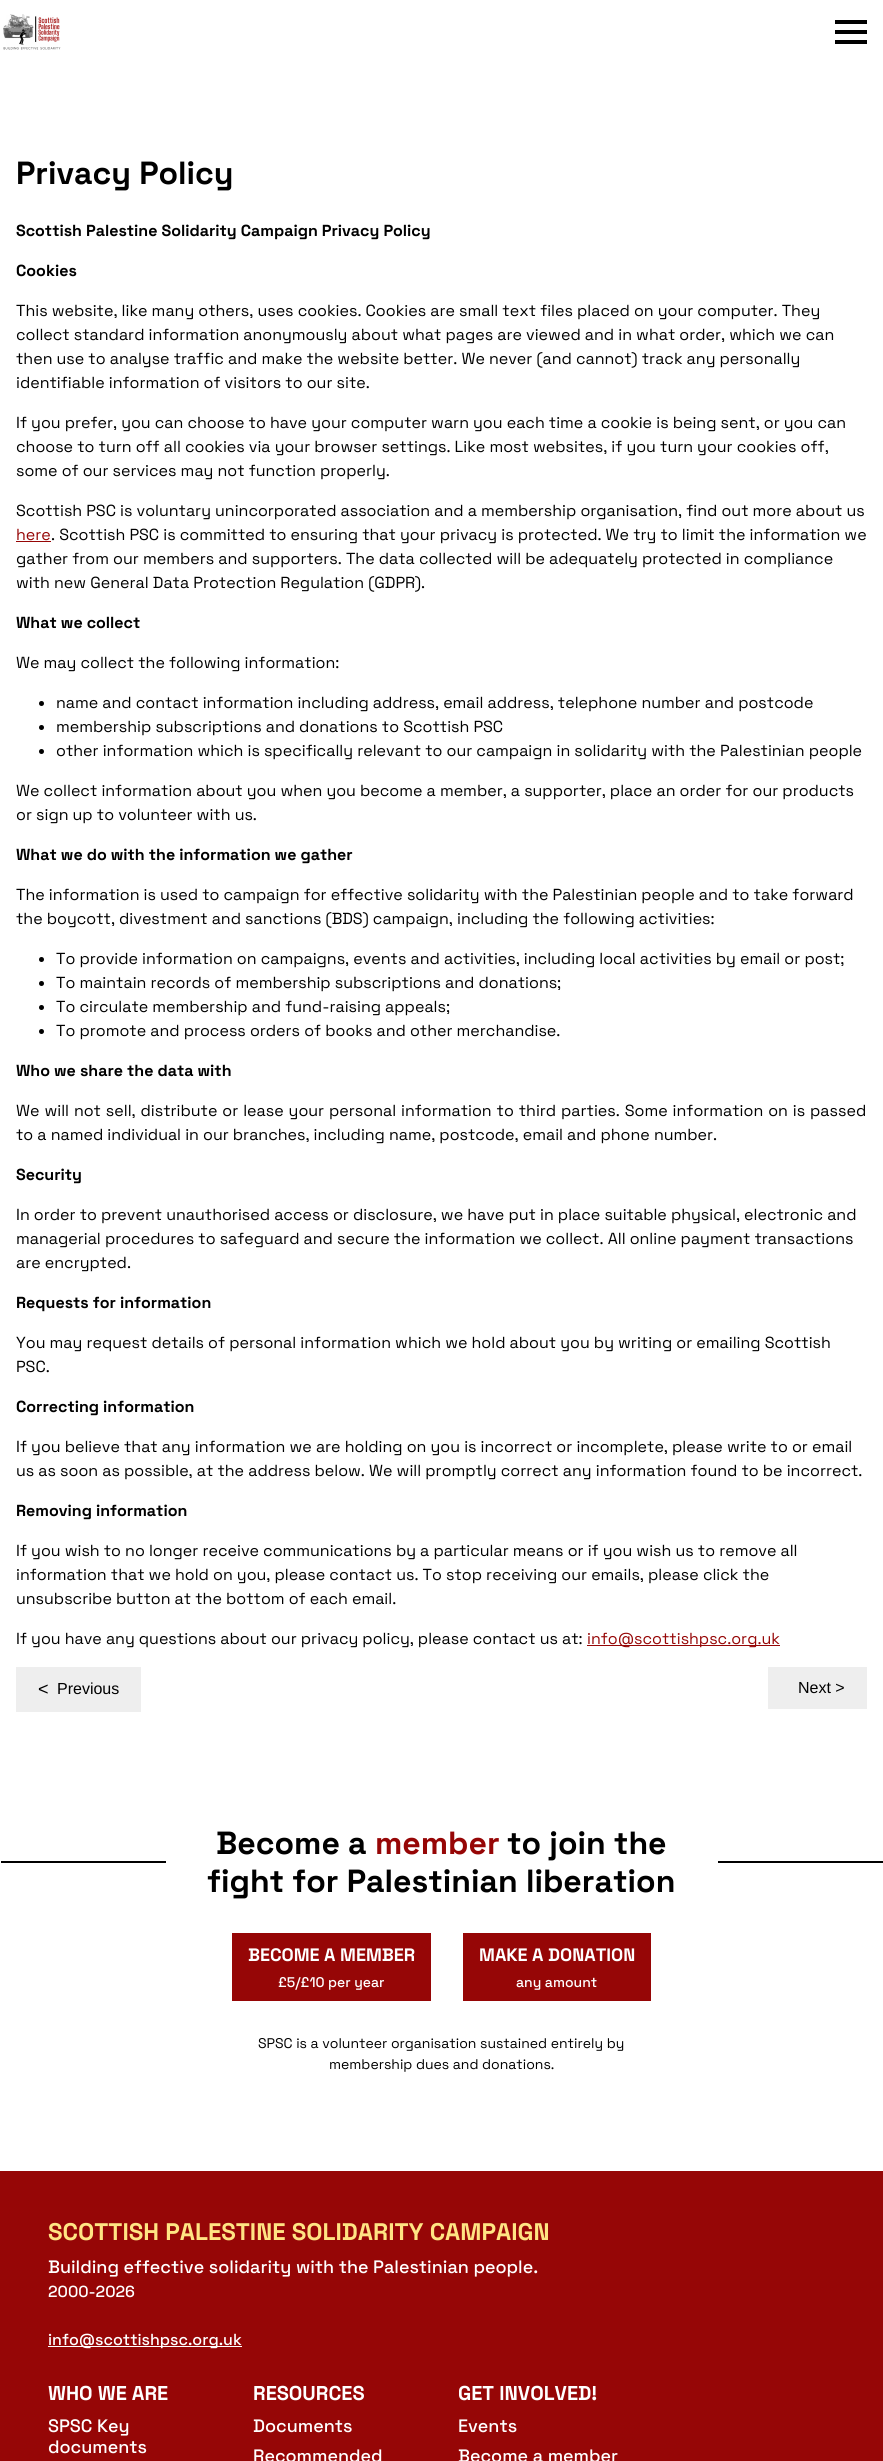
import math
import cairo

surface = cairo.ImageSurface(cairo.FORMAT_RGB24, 883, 2461)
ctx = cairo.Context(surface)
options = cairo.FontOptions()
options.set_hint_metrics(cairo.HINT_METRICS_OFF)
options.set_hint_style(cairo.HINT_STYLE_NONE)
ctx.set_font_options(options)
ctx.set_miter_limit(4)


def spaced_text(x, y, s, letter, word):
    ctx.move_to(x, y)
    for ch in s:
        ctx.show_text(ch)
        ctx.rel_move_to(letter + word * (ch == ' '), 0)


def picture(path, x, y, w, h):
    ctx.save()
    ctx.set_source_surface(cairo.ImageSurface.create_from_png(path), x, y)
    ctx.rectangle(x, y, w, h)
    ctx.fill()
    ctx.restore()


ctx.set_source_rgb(1, 1, 1)
ctx.paint()
picture("img1.png", 3, 14, 58, 36)
ctx.set_source_rgb(0, 0, 0)
ctx.rectangle(835, 20, 32, 4)
ctx.fill()
ctx.rectangle(835, 30, 32, 4)
ctx.fill()
ctx.rectangle(835, 40, 32, 4)
ctx.fill()
ctx.select_font_face("Space Grotesk", cairo.FONT_SLANT_NORMAL, cairo.FONT_WEIGHT_BOLD)
ctx.set_font_size(32)
ctx.move_to(16, 184)
ctx.show_text("Privacy Policy")
ctx.set_font_size(16)
ctx.move_to(16, 236)
ctx.show_text("Scottish Palestine Solidarity Campaign Privacy Policy")
ctx.move_to(16, 276)
ctx.show_text("Cookies")
ctx.select_font_face("Space Grotesk")
ctx.move_to(16, 316)
ctx.show_text("This website, like many others, uses cookies. Cookies are small text files placed on your computer. They")
ctx.move_to(16, 340)
ctx.show_text("collect standard information anonymously about what pages are viewed and in what order, which we can")
ctx.move_to(16, 364)
ctx.show_text("then use to analyse traffic and make the website better. We never (and cannot) track any personally")
ctx.move_to(16, 388)
ctx.show_text("identifiable information of visitors to our site.")
ctx.move_to(16, 428)
ctx.show_text("If you prefer, you can choose to have your computer warn you each time a cookie is being sent, or you can")
ctx.move_to(16, 452)
ctx.show_text("choose to turn off all cookies via your browser settings. Like most websites, if you turn your cookies off,")
ctx.move_to(16, 476)
ctx.show_text("some of our services may not function properly.")
ctx.move_to(16, 516)
ctx.show_text("Scottish PSC is voluntary unincorporated association and a membership organisation, find out more about us")
ctx.set_source_rgb(0.588, 0.024, 0.024)
ctx.move_to(16, 540)
ctx.show_text("here")
ctx.rectangle(16, 541, 35, 1)
ctx.fill()
ctx.set_source_rgb(0, 0, 0)
ctx.move_to(51, 540)
ctx.show_text(". Scottish PSC is committed to ensuring that your privacy is protected. We try to limit the information we")
ctx.move_to(16, 564)
ctx.show_text("gather from our members and supporters. The data collected will be adequately protected in compliance")
ctx.move_to(16, 588)
ctx.show_text("with new General Data Protection Regulation (GDPR).")
ctx.select_font_face("Space Grotesk", cairo.FONT_SLANT_NORMAL, cairo.FONT_WEIGHT_BOLD)
ctx.move_to(16, 628)
ctx.show_text("What we collect")
ctx.select_font_face("Space Grotesk")
ctx.move_to(16, 668)
ctx.show_text("We may collect the following information:")
ctx.new_path()
ctx.arc(41.5, 703.5, 2.5, 0, 2 * math.pi)
ctx.fill()
ctx.move_to(56, 708)
ctx.show_text("name and contact information including address, email address, telephone number and postcode")
ctx.new_path()
ctx.arc(41.5, 727.5, 2.5, 0, 2 * math.pi)
ctx.fill()
ctx.move_to(56, 732)
ctx.show_text("membership subscriptions and donations to Scottish PSC")
ctx.new_path()
ctx.arc(41.5, 751.5, 2.5, 0, 2 * math.pi)
ctx.fill()
ctx.move_to(56, 756)
ctx.show_text("other information which is specifically relevant to our campaign in solidarity with the Palestinian people")
ctx.move_to(16, 796)
ctx.show_text("We collect information about you when you become a member, a supporter, place an order for our products")
ctx.move_to(16, 820)
ctx.show_text("or sign up to volunteer with us.")
ctx.select_font_face("Space Grotesk", cairo.FONT_SLANT_NORMAL, cairo.FONT_WEIGHT_BOLD)
ctx.move_to(16, 860)
ctx.show_text("What we do with the information we gather")
ctx.select_font_face("Space Grotesk")
ctx.move_to(16, 900)
ctx.show_text("The information is used to campaign for effective solidarity with the Palestinian people and to take forward")
ctx.move_to(16, 924)
ctx.show_text("the boycott, divestment and sanctions (BDS) campaign, including the following activities:")
ctx.new_path()
ctx.arc(41.5, 959.5, 2.5, 0, 2 * math.pi)
ctx.fill()
ctx.move_to(56, 964)
ctx.show_text("To provide information on campaigns, events and activities, including local activities by email or post;")
ctx.new_path()
ctx.arc(41.5, 983.5, 2.5, 0, 2 * math.pi)
ctx.fill()
ctx.move_to(56, 988)
ctx.show_text("To maintain records of membership subscriptions and donations;")
ctx.new_path()
ctx.arc(41.5, 1007.5, 2.5, 0, 2 * math.pi)
ctx.fill()
ctx.move_to(56, 1012)
ctx.show_text("To circulate membership and fund-raising appeals;")
ctx.new_path()
ctx.arc(41.5, 1031.5, 2.5, 0, 2 * math.pi)
ctx.fill()
ctx.move_to(56, 1036)
ctx.show_text("To promote and process orders of books and other merchandise.")
ctx.select_font_face("Space Grotesk", cairo.FONT_SLANT_NORMAL, cairo.FONT_WEIGHT_BOLD)
ctx.move_to(16, 1076)
ctx.show_text("Who we share the data with")
ctx.select_font_face("Space Grotesk")
spaced_text(16, 1116, "We will not sell, distribute or lease your personal information to third parties. Some information on is passed", 0, 0.8)
ctx.move_to(16, 1140)
ctx.show_text("to a named individual in our branches, including name, postcode, email and phone number.")
ctx.select_font_face("Space Grotesk", cairo.FONT_SLANT_NORMAL, cairo.FONT_WEIGHT_BOLD)
ctx.move_to(16, 1180)
ctx.show_text("Security")
ctx.select_font_face("Space Grotesk")
ctx.move_to(16, 1220)
ctx.show_text("In order to prevent unauthorised access or disclosure, we have put in place suitable physical, electronic and")
ctx.move_to(16, 1244)
ctx.show_text("managerial procedures to safeguard and secure the information we collect. All online payment transactions")
ctx.move_to(16, 1268)
ctx.show_text("are encrypted.")
ctx.select_font_face("Space Grotesk", cairo.FONT_SLANT_NORMAL, cairo.FONT_WEIGHT_BOLD)
ctx.move_to(16, 1308)
ctx.show_text("Requests for information")
ctx.select_font_face("Space Grotesk")
ctx.move_to(16, 1348)
ctx.show_text("You may request details of personal information which we hold about you by writing or emailing Scottish")
ctx.move_to(16, 1372)
ctx.show_text("PSC.")
ctx.select_font_face("Space Grotesk", cairo.FONT_SLANT_NORMAL, cairo.FONT_WEIGHT_BOLD)
ctx.move_to(16, 1412)
ctx.show_text("Correcting information")
ctx.select_font_face("Space Grotesk")
ctx.move_to(16, 1452)
ctx.show_text("If you believe that any information we are holding on you is incorrect or incomplete, please write to or email")
ctx.move_to(16, 1476)
ctx.show_text("us as soon as possible, at the address below. We will promptly correct any information found to be incorrect.")
ctx.select_font_face("Space Grotesk", cairo.FONT_SLANT_NORMAL, cairo.FONT_WEIGHT_BOLD)
ctx.move_to(16, 1516)
ctx.show_text("Removing information")
ctx.select_font_face("Space Grotesk")
ctx.move_to(16, 1556)
ctx.show_text("If you wish to no longer receive communications by a particular means or if you wish us to remove all")
ctx.move_to(16, 1580)
ctx.show_text("information that we hold on you, please contact us. To stop receiving our emails, please click the")
ctx.move_to(16, 1604)
ctx.show_text("unsubscribe button at the bottom of each email.")
ctx.move_to(16, 1644)
ctx.show_text("If you have any questions about our privacy policy, please contact us at:")
ctx.set_source_rgb(0.588, 0.024, 0.024)
ctx.rectangle(587, 1645, 193, 1)
ctx.fill()
ctx.move_to(587, 1644)
ctx.show_text("info@scottishpsc.org.uk")
ctx.set_source_rgb(0.933, 0.933, 0.933)
ctx.rectangle(16, 1667, 125, 45)
ctx.fill()
ctx.select_font_face("Liberation Sans")
ctx.set_font_size(18)
ctx.set_source_rgb(0, 0, 0)
ctx.move_to(38, 1695)
ctx.show_text("<")
ctx.set_font_size(16)
ctx.move_to(57, 1694)
ctx.show_text("Previous")
ctx.set_source_rgb(0.933, 0.933, 0.933)
ctx.rectangle(768, 1667, 99, 42)
ctx.fill()
ctx.set_source_rgb(0, 0, 0)
ctx.move_to(798, 1693)
ctx.show_text("Next >")
ctx.rectangle(1, 1861, 882, 2)
ctx.fill()
ctx.set_source_rgb(1, 1, 1)
ctx.rectangle(166, 1861, 552, 2)
ctx.fill()
ctx.select_font_face("Space Grotesk", cairo.FONT_SLANT_NORMAL, cairo.FONT_WEIGHT_BOLD)
ctx.set_font_size(32)
ctx.set_source_rgb(0, 0, 0)
ctx.move_to(216, 1854)
ctx.show_text("Become a")
ctx.set_source_rgb(0.588, 0.024, 0.024)
ctx.move_to(375, 1854)
ctx.show_text("member")
ctx.set_source_rgb(0, 0, 0)
ctx.move_to(507, 1854)
ctx.show_text("to join the")
ctx.move_to(207, 1892)
ctx.show_text("fight for Palestinian liberation")
ctx.set_source_rgb(0.588, 0.024, 0.024)
ctx.rectangle(232, 1933, 199, 68)
ctx.fill()
ctx.set_font_size(18)
ctx.set_source_rgb(1, 1, 1)
ctx.move_to(248, 1961)
ctx.show_text("BECOME A MEMBER")
ctx.select_font_face("Space Grotesk Medium")
ctx.set_font_size(14)
ctx.move_to(278, 1987)
ctx.show_text("£5/£10 per year")
ctx.set_source_rgb(0.588, 0.024, 0.024)
ctx.rectangle(463, 1933, 188, 68)
ctx.fill()
ctx.select_font_face("Space Grotesk", cairo.FONT_SLANT_NORMAL, cairo.FONT_WEIGHT_BOLD)
ctx.set_font_size(18)
ctx.set_source_rgb(1, 1, 1)
ctx.move_to(479, 1961)
ctx.show_text("MAKE A DONATION")
ctx.select_font_face("Space Grotesk Medium")
ctx.set_font_size(14)
ctx.move_to(516, 1987)
ctx.show_text("any amount")
ctx.select_font_face("Space Grotesk")
ctx.set_source_rgb(0, 0, 0)
ctx.move_to(258, 2048)
ctx.show_text("SPSC is a volunteer organisation sustained entirely by")
ctx.move_to(329, 2069)
ctx.show_text("membership dues and donations.")
ctx.set_source_rgb(0.588, 0.024, 0.024)
ctx.rectangle(0, 2171, 883, 290)
ctx.fill()
ctx.select_font_face("Space Grotesk", cairo.FONT_SLANT_NORMAL, cairo.FONT_WEIGHT_BOLD)
ctx.set_font_size(24)
ctx.set_source_rgb(1, 0.894, 0.514)
ctx.move_to(48, 2240)
ctx.show_text("SCOTTISH PALESTINE SOLIDARITY CAMPAIGN")
ctx.select_font_face("Space Grotesk Medium")
ctx.set_font_size(18)
ctx.set_source_rgb(1, 1, 1)
ctx.move_to(48, 2273)
ctx.show_text("Building effective solidarity with the Palestinian people.")
ctx.set_font_size(16)
ctx.move_to(48, 2297)
ctx.show_text("2000-2026")
ctx.rectangle(48, 2346, 194, 1)
ctx.fill()
ctx.move_to(48, 2345)
ctx.show_text("info@scottishpsc.org.uk")
ctx.select_font_face("Space Grotesk", cairo.FONT_SLANT_NORMAL, cairo.FONT_WEIGHT_BOLD)
ctx.set_font_size(20)
ctx.move_to(48, 2400)
ctx.show_text("WHO WE ARE")
ctx.select_font_face("Space Grotesk Medium")
ctx.set_font_size(18)
ctx.move_to(48, 2432)
ctx.show_text("SPSC Key")
ctx.move_to(48, 2453)
ctx.show_text("documents")
ctx.select_font_face("Space Grotesk", cairo.FONT_SLANT_NORMAL, cairo.FONT_WEIGHT_BOLD)
ctx.set_font_size(20)
ctx.move_to(253, 2400)
ctx.show_text("RESOURCES")
ctx.select_font_face("Space Grotesk Medium")
ctx.set_font_size(18)
ctx.move_to(253, 2432)
ctx.show_text("Documents")
ctx.move_to(253, 2462)
ctx.show_text("Recommended")
ctx.select_font_face("Space Grotesk", cairo.FONT_SLANT_NORMAL, cairo.FONT_WEIGHT_BOLD)
ctx.set_font_size(20)
ctx.move_to(458, 2400)
ctx.show_text("GET INVOLVED!")
ctx.select_font_face("Space Grotesk Medium")
ctx.set_font_size(18)
ctx.move_to(458, 2432)
ctx.show_text("Events")
ctx.move_to(458, 2462)
ctx.show_text("Become a member")
surface.write_to_png("page.png")
